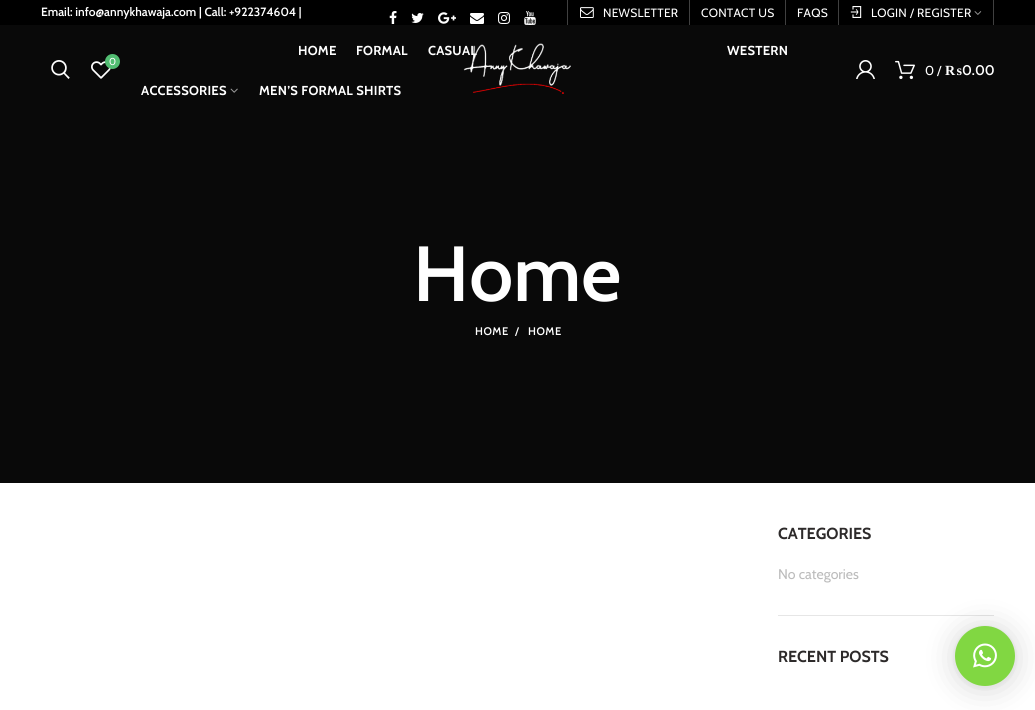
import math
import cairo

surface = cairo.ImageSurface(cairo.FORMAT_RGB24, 1035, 710)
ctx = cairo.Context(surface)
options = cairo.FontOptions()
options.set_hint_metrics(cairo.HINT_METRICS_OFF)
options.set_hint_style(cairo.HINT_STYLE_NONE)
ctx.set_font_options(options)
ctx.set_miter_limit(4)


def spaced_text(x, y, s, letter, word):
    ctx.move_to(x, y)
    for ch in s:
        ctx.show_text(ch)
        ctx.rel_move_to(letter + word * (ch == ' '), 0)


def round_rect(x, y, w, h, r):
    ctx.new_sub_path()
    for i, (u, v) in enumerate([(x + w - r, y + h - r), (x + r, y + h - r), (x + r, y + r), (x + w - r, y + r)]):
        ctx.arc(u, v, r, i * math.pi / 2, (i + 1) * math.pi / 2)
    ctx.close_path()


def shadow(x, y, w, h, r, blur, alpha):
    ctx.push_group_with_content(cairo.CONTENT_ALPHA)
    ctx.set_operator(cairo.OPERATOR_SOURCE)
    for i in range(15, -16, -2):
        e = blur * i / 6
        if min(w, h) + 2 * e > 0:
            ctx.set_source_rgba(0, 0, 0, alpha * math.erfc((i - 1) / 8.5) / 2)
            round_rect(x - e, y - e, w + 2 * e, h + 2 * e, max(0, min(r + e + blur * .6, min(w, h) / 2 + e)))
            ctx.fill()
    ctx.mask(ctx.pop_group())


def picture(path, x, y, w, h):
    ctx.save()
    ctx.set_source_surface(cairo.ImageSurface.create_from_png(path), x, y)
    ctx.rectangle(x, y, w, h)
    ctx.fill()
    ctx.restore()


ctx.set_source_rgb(1, 1, 1)
ctx.paint()
ctx.set_source_rgb(0, 0, 0)
ctx.rectangle(0, 0, 1035, 25)
ctx.fill()
ctx.select_font_face("Cabin SemiBold")
ctx.set_font_size(12)
ctx.set_source_rgb(1, 1, 1)
ctx.move_to(41, 16)
ctx.show_text("Email: info@annykhawaja.com | Call: +922374604 |")
picture("img1.png", 389, 11, 8, 13)
picture("img2.png", 411, 13, 13, 10)
picture("img3.png", 438, 12, 18, 12)
picture("img4.png", 470, 13, 14, 11)
picture("img5.png", 498, 12, 12, 12)
picture("img6.png", 524, 11, 12, 14)
ctx.set_source_rgb(0.251, 0.251, 0.251)
ctx.rectangle(993, 0, 1, 25)
ctx.fill()
ctx.rectangle(567, 0, 1, 25)
ctx.fill()
ctx.rectangle(689, 0, 1, 25)
ctx.fill()
picture("img7.png", 580, 7, 14, 11)
ctx.select_font_face("Cabin")
ctx.set_source_rgb(1, 1, 1)
spaced_text(603, 17, "NEWSLETTER", 0.25, 0)
ctx.set_source_rgb(0.251, 0.251, 0.251)
ctx.rectangle(785, 0, 1, 25)
ctx.fill()
ctx.set_source_rgb(1, 1, 1)
spaced_text(701, 17, "CONTACT US", 0.25, 0)
ctx.set_source_rgb(0.251, 0.251, 0.251)
ctx.rectangle(838, 0, 1, 25)
ctx.fill()
ctx.set_source_rgb(1, 1, 1)
spaced_text(797, 17, "FAQS", 0.25, 0)
picture("img8.png", 850, 6, 12, 12)
spaced_text(871, 17, "LOGIN / REGISTER", 0.25, 0)
picture("img9.png", 974, 11, 8, 4)
ctx.set_source_rgb(0.039, 0.039, 0.039)
ctx.rectangle(0, 25, 1035, 458)
ctx.fill()
ctx.select_font_face("Cabin", cairo.FONT_SLANT_NORMAL, cairo.FONT_WEIGHT_BOLD)
ctx.set_font_size(13)
ctx.set_source_rgb(1, 1, 1)
spaced_text(428, 55, "CASUAL", 0.25, 0)
picture("img10.png", 463, 43, 108, 51)
picture("img11.png", 51, 60, 19, 19)
picture("img12.png", 91, 61, 20, 18)
ctx.set_source_rgb(0.322, 0.741, 0.447)
ctx.arc(112.5, 61.5, 7.5, 0, 2 * math.pi)
ctx.fill()
ctx.select_font_face("Cabin")
ctx.set_font_size(10)
ctx.set_source_rgb(1, 1, 1)
ctx.move_to(109, 65)
ctx.show_text("0")
ctx.select_font_face("Cabin", cairo.FONT_SLANT_NORMAL, cairo.FONT_WEIGHT_BOLD)
ctx.set_font_size(13)
spaced_text(298, 55, "HOME", 0.25, 0)
spaced_text(356, 55, "FORMAL", 0.25, 0)
spaced_text(727, 55, "WESTERN", 0.25, 0)
spaced_text(141, 95, "ACCESSORIES", 0.25, 0)
picture("img13.png", 230, 88, 8, 5)
spaced_text(259, 95, "MEN’S FORMAL SHIRTS", 0.25, 0)
picture("img14.png", 856, 60, 19, 19)
picture("img15.png", 895, 60, 20, 20)
ctx.select_font_face("Cabin")
ctx.move_to(925, 75)
ctx.show_text("0 /")
ctx.select_font_face("Liberation Serif", cairo.FONT_SLANT_NORMAL, cairo.FONT_WEIGHT_BOLD)
ctx.set_font_size(14)
ctx.move_to(945, 75)
ctx.show_text("₨")
ctx.select_font_face("Cabin SemiBold")
ctx.move_to(962, 75)
ctx.show_text("0.00")
ctx.set_font_size(78)
ctx.move_to(413, 301)
ctx.show_text("Home")
ctx.set_font_size(11)
spaced_text(475, 335, "HOME", 0.5, 0)
spaced_text(515, 335, "/", 0.5, 0)
spaced_text(528, 335, "HOME", 0.5, 0)
ctx.set_source_rgb(0.902, 0.902, 0.902)
ctx.rectangle(778, 615, 216, 1)
ctx.fill()
ctx.select_font_face("Cabin", cairo.FONT_SLANT_NORMAL, cairo.FONT_WEIGHT_BOLD)
ctx.set_font_size(16)
ctx.set_source_rgb(0.176, 0.165, 0.165)
ctx.move_to(778, 539)
ctx.show_text("CATEGORIES")
ctx.select_font_face("Cabin")
ctx.set_font_size(14)
ctx.set_source_rgb(0.733, 0.733, 0.733)
ctx.move_to(778, 579)
ctx.show_text("No categories")
ctx.select_font_face("Cabin", cairo.FONT_SLANT_NORMAL, cairo.FONT_WEIGHT_BOLD)
ctx.set_font_size(16)
ctx.set_source_rgb(0.176, 0.165, 0.165)
ctx.move_to(778, 662)
ctx.show_text("RECENT POSTS")
ctx.set_source_rgb(0, 0, 0)
shadow(955, 628, 60, 60, 30, 16, 0.16)
shadow(955, 627, 60, 60, 30, 3, 0.06)
ctx.set_source_rgb(0.506, 0.843, 0.259)
ctx.arc(985, 656, 30, 0, 2 * math.pi)
ctx.fill()
picture("img16.png", 973, 643, 24, 25)
surface.write_to_png("page.png")
